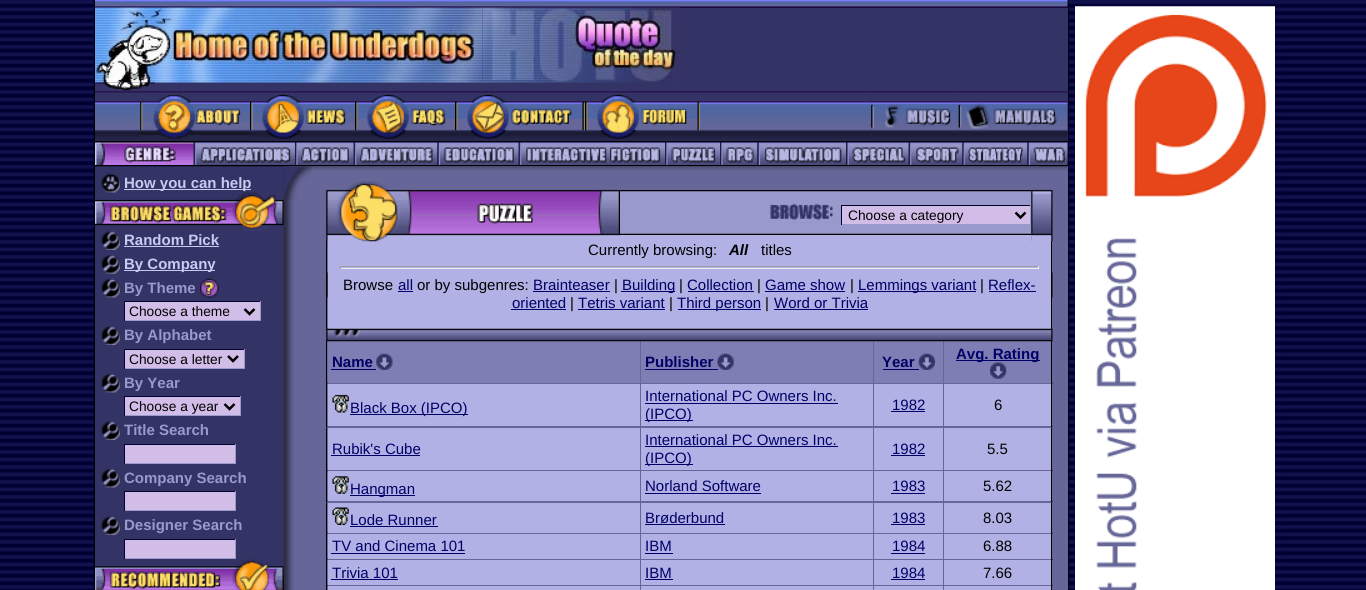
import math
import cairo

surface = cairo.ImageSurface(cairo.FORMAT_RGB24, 1366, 590)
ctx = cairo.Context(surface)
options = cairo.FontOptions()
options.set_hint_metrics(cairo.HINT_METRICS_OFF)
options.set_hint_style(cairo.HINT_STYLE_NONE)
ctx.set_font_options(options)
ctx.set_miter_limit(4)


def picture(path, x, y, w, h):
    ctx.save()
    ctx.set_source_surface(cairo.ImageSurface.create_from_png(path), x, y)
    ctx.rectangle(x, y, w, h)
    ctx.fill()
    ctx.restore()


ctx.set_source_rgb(1, 1, 1)
ctx.paint()
picture("img1.png", 95, 0, 973, 165)
ctx.set_source_rgb(0, 0, 0.2)
ctx.rectangle(0, 0, 94, 590)
ctx.fill()
picture("img2.png", 0, 0, 94, 589)
ctx.set_source_rgb(0, 0, 0)
ctx.rectangle(94, 0, 1, 590)
ctx.fill()
picture("img3.png", 95, 0, 973, 8)
ctx.set_source_rgb(0.2, 0.2, 0.4)
ctx.rectangle(95, 8, 973, 75)
ctx.fill()
picture("img4.png", 95, 7, 388, 76)
picture("img5.png", 482, 7, 198, 76)
ctx.rectangle(155, 83, 913, 8)
ctx.fill()
picture("img6.png", 95, 82, 60, 9)
ctx.rectangle(95, 91, 973, 50)
ctx.fill()
ctx.set_source_rgb(0, 0, 0)
ctx.rectangle(95, 141, 973, 1)
ctx.fill()
picture("img7.png", 95, 91, 45, 51)
picture("img8.png", 140, 91, 110, 51)
picture("img9.png", 250, 91, 105, 51)
picture("img10.png", 355, 91, 100, 51)
picture("img11.png", 455, 91, 130, 51)
picture("img12.png", 585, 91, 115, 51)
picture("img13.png", 700, 91, 172, 51)
picture("img14.png", 871, 91, 88, 51)
picture("img15.png", 958, 91, 110, 51)
picture("img16.png", 95, 141, 973, 2)
picture("img17.png", 95, 142, 99, 23)
picture("img18.png", 193, 142, 102, 23)
picture("img19.png", 295, 142, 59, 23)
picture("img20.png", 353, 142, 85, 23)
picture("img21.png", 437, 142, 82, 23)
picture("img22.png", 518, 142, 147, 23)
picture("img23.png", 665, 142, 55, 23)
picture("img24.png", 720, 142, 38, 23)
picture("img25.png", 757, 142, 90, 23)
picture("img26.png", 846, 142, 63, 23)
picture("img27.png", 908, 142, 55, 23)
picture("img28.png", 962, 142, 66, 23)
picture("img29.png", 1027, 142, 41, 23)
ctx.rectangle(95, 165, 973, 1)
ctx.fill()
ctx.set_source_rgb(0.2, 0.2, 0.4)
ctx.rectangle(95, 166, 189, 424)
ctx.fill()
ctx.set_source_rgb(0.4, 0.4, 0.6)
ctx.rectangle(284, 166, 784, 424)
ctx.fill()
picture("img41.png", 283, 166, 11, 424)
picture("img43.png", 312, 166, 756, 5)
picture("img30.png", 95, 166, 973, 1)
ctx.set_source_rgb(0, 0, 0)
ctx.rectangle(1068, 0, 1, 590)
ctx.fill()
picture("img31.png", 1068, 0, 213, 590)
picture("img32.png", 1075, 6, 200, 584)
ctx.set_source_rgb(0, 0, 0.2)
ctx.rectangle(1281, 0, 85, 590)
ctx.fill()
picture("img33.png", 1281, 0, 85, 589)
picture("img34.png", 101, 173, 19, 20)
ctx.set_source_rgb(0.788, 0.792, 0.941)
ctx.rectangle(124, 189, 127, 1)
ctx.fill()
ctx.select_font_face("Liberation Sans", cairo.FONT_SLANT_NORMAL, cairo.FONT_WEIGHT_BOLD)
ctx.set_font_size(15)
ctx.move_to(124, 188)
ctx.show_text("How you can help")
picture("img35.png", 95, 192, 189, 39)
picture("img36.png", 101, 231, 19, 19)
ctx.move_to(124, 245)
ctx.show_text("Random Pick")
ctx.rectangle(124, 246, 95, 1)
ctx.fill()
picture("img37.png", 101, 255, 19, 19)
ctx.rectangle(124, 270, 91, 1)
ctx.fill()
ctx.move_to(124, 269)
ctx.show_text("By Company")
picture("img38.png", 101, 278, 19, 20)
ctx.set_source_rgb(0.6, 0.6, 0.8)
ctx.move_to(124, 293)
ctx.show_text("By Theme")
picture("img39.png", 200, 278, 19, 20)
ctx.set_source_rgb(0.824, 0.741, 0.91)
ctx.rectangle(125, 302, 135, 18)
ctx.fill()
ctx.set_source_rgb(0, 0, 0.2)
ctx.rectangle(124, 301, 137, 1)
ctx.fill()
ctx.set_source_rgb(0.6, 0.6, 0.8)
ctx.rectangle(260, 301, 1, 20)
ctx.fill()
ctx.rectangle(124, 320, 137, 1)
ctx.fill()
ctx.set_source_rgb(0, 0, 0.2)
ctx.rectangle(124, 301, 1, 20)
ctx.fill()
ctx.new_path()
ctx.move_to(244.5, 309)
ctx.line_to(249.5, 314)
ctx.line_to(254.5, 309)
ctx.set_source_rgb(0, 0, 0)
ctx.set_line_width(2.5)
ctx.stroke()
ctx.select_font_face("Liberation Sans")
ctx.set_font_size(13.75)
ctx.move_to(129, 316)
ctx.show_text("Choose a theme")
picture("img36.png", 101, 326, 19, 19)
ctx.select_font_face("Liberation Sans", cairo.FONT_SLANT_NORMAL, cairo.FONT_WEIGHT_BOLD)
ctx.set_font_size(15)
ctx.set_source_rgb(0.6, 0.6, 0.8)
ctx.move_to(124, 340)
ctx.show_text("By Alphabet")
ctx.set_source_rgb(0.824, 0.741, 0.91)
ctx.rectangle(125, 350, 119, 18)
ctx.fill()
ctx.set_source_rgb(0, 0, 0.2)
ctx.rectangle(124, 349, 121, 1)
ctx.fill()
ctx.set_source_rgb(0.6, 0.6, 0.8)
ctx.rectangle(244, 349, 1, 20)
ctx.fill()
ctx.rectangle(124, 368, 121, 1)
ctx.fill()
ctx.set_source_rgb(0, 0, 0.2)
ctx.rectangle(124, 349, 1, 20)
ctx.fill()
ctx.new_path()
ctx.move_to(228, 356)
ctx.line_to(233, 361)
ctx.line_to(238, 356)
ctx.set_source_rgb(0, 0, 0)
ctx.stroke()
ctx.select_font_face("Liberation Sans")
ctx.set_font_size(13.75)
ctx.move_to(129, 364)
ctx.show_text("Choose a letter")
picture("img38.png", 101, 373, 19, 20)
ctx.select_font_face("Liberation Sans", cairo.FONT_SLANT_NORMAL, cairo.FONT_WEIGHT_BOLD)
ctx.set_font_size(15)
ctx.set_source_rgb(0.6, 0.6, 0.8)
ctx.move_to(124, 388)
ctx.show_text("By Year")
ctx.set_source_rgb(0.824, 0.741, 0.91)
ctx.rectangle(125, 397, 115, 18)
ctx.fill()
ctx.set_source_rgb(0, 0, 0.2)
ctx.rectangle(124, 396, 117, 1)
ctx.fill()
ctx.set_source_rgb(0.6, 0.6, 0.8)
ctx.rectangle(240, 396, 1, 20)
ctx.fill()
ctx.rectangle(124, 415, 117, 1)
ctx.fill()
ctx.set_source_rgb(0, 0, 0.2)
ctx.rectangle(124, 396, 1, 20)
ctx.fill()
ctx.new_path()
ctx.move_to(224.5, 404)
ctx.line_to(229.5, 409)
ctx.line_to(234.5, 404)
ctx.set_source_rgb(0, 0, 0)
ctx.stroke()
ctx.select_font_face("Liberation Sans")
ctx.set_font_size(13.75)
ctx.move_to(129, 411)
ctx.show_text("Choose a year")
picture("img36.png", 101, 421, 19, 19)
ctx.select_font_face("Liberation Sans", cairo.FONT_SLANT_NORMAL, cairo.FONT_WEIGHT_BOLD)
ctx.set_font_size(15)
ctx.set_source_rgb(0.6, 0.6, 0.8)
ctx.move_to(124, 435)
ctx.show_text("Title Search")
ctx.set_source_rgb(0.824, 0.741, 0.91)
ctx.rectangle(125, 445, 110, 18)
ctx.fill()
ctx.set_source_rgb(0, 0, 0.2)
ctx.rectangle(124, 444, 112, 1)
ctx.fill()
ctx.set_source_rgb(0.6, 0.6, 0.8)
ctx.rectangle(235, 444, 1, 20)
ctx.fill()
ctx.rectangle(124, 463, 112, 1)
ctx.fill()
ctx.set_source_rgb(0, 0, 0.2)
ctx.rectangle(124, 444, 1, 20)
ctx.fill()
picture("img38.png", 101, 468, 19, 20)
ctx.set_source_rgb(0.6, 0.6, 0.8)
ctx.move_to(124, 483)
ctx.show_text("Company Search")
ctx.set_source_rgb(0.824, 0.741, 0.91)
ctx.rectangle(125, 492, 110, 18)
ctx.fill()
ctx.set_source_rgb(0, 0, 0.2)
ctx.rectangle(124, 491, 112, 1)
ctx.fill()
ctx.set_source_rgb(0.6, 0.6, 0.8)
ctx.rectangle(235, 491, 1, 20)
ctx.fill()
ctx.rectangle(124, 510, 112, 1)
ctx.fill()
ctx.set_source_rgb(0, 0, 0.2)
ctx.rectangle(124, 491, 1, 20)
ctx.fill()
picture("img36.png", 101, 516, 19, 19)
ctx.set_source_rgb(0.6, 0.6, 0.8)
ctx.move_to(124, 530)
ctx.show_text("Designer Search")
ctx.set_source_rgb(0.824, 0.741, 0.91)
ctx.rectangle(125, 540, 110, 18)
ctx.fill()
ctx.set_source_rgb(0, 0, 0.2)
ctx.rectangle(124, 539, 112, 1)
ctx.fill()
ctx.set_source_rgb(0.6, 0.6, 0.8)
ctx.rectangle(235, 539, 1, 20)
ctx.fill()
ctx.rectangle(124, 558, 112, 1)
ctx.fill()
ctx.set_source_rgb(0, 0, 0.2)
ctx.rectangle(124, 539, 1, 20)
ctx.fill()
picture("img40.png", 95, 559, 189, 31)
picture("img42.png", 283, 166, 30, 34)
ctx.set_source_rgba(0.173, 0.173, 0.267, 0.25)
ctx.rectangle(283, 200, 1, 375)
ctx.fill()
picture("img44.png", 313, 166, 726, 1)
ctx.set_source_rgb(0, 0, 0)
ctx.rectangle(326, 241, 1, 88)
ctx.fill()
ctx.set_source_rgb(0.694, 0.694, 0.902)
ctx.rectangle(328, 241, 723, 88)
ctx.fill()
picture("img45.png", 326, 181, 294, 61)
ctx.set_source_rgb(0, 0, 0)
ctx.rectangle(1051, 241, 1, 88)
ctx.fill()
picture("img46.png", 1031, 189, 22, 53)
ctx.set_source_rgb(0.6, 0.6, 0.8)
ctx.rectangle(620, 191, 411, 43)
ctx.fill()
picture("img47.png", 620, 190, 412, 2)
picture("img48.png", 770, 203, 63, 17)
ctx.set_source_rgb(0.824, 0.741, 0.91)
ctx.rectangle(842, 206, 188, 18)
ctx.fill()
ctx.set_source_rgb(0, 0, 0.2)
ctx.rectangle(841, 205, 190, 1)
ctx.fill()
ctx.set_source_rgb(0.6, 0.6, 0.8)
ctx.rectangle(1030, 205, 1, 1)
ctx.fill()
ctx.set_source_rgb(0, 0, 0.2)
ctx.rectangle(841, 205, 1, 20)
ctx.fill()
ctx.new_path()
ctx.move_to(1015.5, 212.5)
ctx.line_to(1020.5, 217.5)
ctx.line_to(1025.5, 212.5)
ctx.set_source_rgb(0, 0, 0)
ctx.stroke()
ctx.select_font_face("Liberation Sans")
ctx.set_font_size(13.75)
ctx.move_to(848, 220)
ctx.show_text("Choose a category")
picture("img49.png", 620, 233, 412, 2)
ctx.set_source_rgb(0.694, 0.694, 0.902)
ctx.rectangle(620, 235, 411, 6)
ctx.fill()
picture("img50.png", 327, 272, 1, 26)
picture("img50.png", 1052, 272, 1, 26)
ctx.set_font_size(15)
ctx.set_source_rgb(0, 0, 0)
ctx.move_to(588, 255)
ctx.show_text("Currently browsing:")
ctx.select_font_face("Liberation Sans", cairo.FONT_SLANT_ITALIC, cairo.FONT_WEIGHT_BOLD)
ctx.move_to(729, 255)
ctx.show_text("All")
ctx.select_font_face("Liberation Sans")
ctx.move_to(761, 255)
ctx.show_text("titles")
ctx.set_source_rgb(0.624, 0.624, 0.624)
ctx.rectangle(340, 266, 699, 1)
ctx.fill()
ctx.set_source_rgb(0.933, 0.933, 0.933)
ctx.rectangle(1038, 266, 1, 3)
ctx.fill()
ctx.rectangle(340, 268, 699, 1)
ctx.fill()
ctx.set_source_rgb(0.624, 0.624, 0.624)
ctx.rectangle(340, 266, 1, 3)
ctx.fill()
ctx.set_source_rgb(0, 0, 0)
ctx.move_to(343, 290)
ctx.show_text("Browse")
ctx.set_source_rgb(0, 0, 0.4)
ctx.move_to(398, 290)
ctx.show_text("all")
ctx.rectangle(398, 291, 15, 1)
ctx.fill()
ctx.set_source_rgb(0, 0, 0)
ctx.move_to(417, 290)
ctx.show_text("or by subgenres:")
ctx.set_source_rgb(0, 0, 0.4)
ctx.move_to(533, 290)
ctx.show_text("Brainteaser")
ctx.rectangle(533, 291, 77, 1)
ctx.fill()
ctx.set_source_rgb(0, 0, 0)
ctx.move_to(614, 290)
ctx.show_text("|")
ctx.set_source_rgb(0, 0, 0.4)
ctx.rectangle(621, 291, 54, 1)
ctx.fill()
ctx.move_to(622, 290)
ctx.show_text("Building")
ctx.set_source_rgb(0, 0, 0)
ctx.move_to(679, 290)
ctx.show_text("|")
ctx.set_source_rgb(0, 0, 0.4)
ctx.move_to(687, 290)
ctx.show_text("Collection")
ctx.rectangle(688, 291, 66, 1)
ctx.fill()
ctx.set_source_rgb(0, 0, 0)
ctx.move_to(757, 290)
ctx.show_text("|")
ctx.set_source_rgb(0, 0, 0.4)
ctx.move_to(765, 290)
ctx.show_text("Game show")
ctx.rectangle(765, 291, 80, 1)
ctx.fill()
ctx.set_source_rgb(0, 0, 0)
ctx.move_to(850, 290)
ctx.show_text("|")
ctx.set_source_rgb(0, 0, 0.4)
ctx.rectangle(858, 291, 118, 1)
ctx.fill()
ctx.move_to(858, 290)
ctx.show_text("Lemmings variant")
ctx.set_source_rgb(0, 0, 0)
ctx.move_to(980, 290)
ctx.show_text("|")
ctx.set_source_rgb(0, 0, 0.4)
ctx.move_to(988, 290)
ctx.show_text("Reflex-")
ctx.rectangle(989, 291, 47, 1)
ctx.fill()
ctx.move_to(512, 308)
ctx.show_text("oriented")
ctx.rectangle(511, 309, 55, 1)
ctx.fill()
ctx.set_source_rgb(0, 0, 0)
ctx.move_to(570, 308)
ctx.show_text("|")
ctx.set_source_rgb(0, 0, 0.4)
ctx.move_to(578, 308)
ctx.show_text("Tetris variant")
ctx.rectangle(578, 309, 87, 1)
ctx.fill()
ctx.set_source_rgb(0, 0, 0)
ctx.move_to(669, 308)
ctx.show_text("|")
ctx.set_source_rgb(0, 0, 0.4)
ctx.rectangle(678, 309, 83, 1)
ctx.fill()
ctx.move_to(677, 308)
ctx.show_text("Third person")
ctx.set_source_rgb(0, 0, 0)
ctx.move_to(765, 308)
ctx.show_text("|")
ctx.set_source_rgb(0, 0, 0.4)
ctx.move_to(774, 308)
ctx.show_text("Word or Trivia")
ctx.rectangle(774, 309, 94, 1)
ctx.fill()
ctx.set_source_rgb(0, 0, 0)
ctx.rectangle(326, 341, 1, 86)
ctx.fill()
ctx.set_source_rgb(0.494, 0.494, 0.706)
ctx.rectangle(328, 341, 312, 42)
ctx.fill()
ctx.rectangle(641, 341, 232, 42)
ctx.fill()
ctx.rectangle(874, 341, 69, 42)
ctx.fill()
ctx.rectangle(944, 341, 107, 42)
ctx.fill()
ctx.set_source_rgb(0, 0, 0)
ctx.rectangle(1051, 341, 1, 86)
ctx.fill()
picture("img51.png", 326, 328, 727, 14)
ctx.select_font_face("Liberation Sans", cairo.FONT_SLANT_NORMAL, cairo.FONT_WEIGHT_BOLD)
ctx.set_source_rgb(0, 0, 0.4)
ctx.move_to(332, 367)
ctx.show_text("Name")
ctx.rectangle(331, 369, 45, 1)
ctx.fill()
picture("img52.png", 376, 353, 17, 17)
ctx.move_to(645, 367)
ctx.show_text("Publisher")
ctx.rectangle(645, 369, 73, 1)
ctx.fill()
picture("img53.png", 717, 353, 17, 17)
ctx.move_to(882, 367)
ctx.show_text("Year")
ctx.rectangle(883, 369, 36, 1)
ctx.fill()
picture("img54.png", 918, 353, 17, 17)
ctx.rectangle(956, 360, 84, 1)
ctx.fill()
ctx.move_to(956, 359)
ctx.show_text("Avg. Rating")
picture("img55.png", 990, 362, 17, 17)
picture("img56.png", 327, 382, 1, 2)
picture("img56.png", 1052, 382, 1, 2)
ctx.set_source_rgb(0.694, 0.694, 0.902)
ctx.rectangle(328, 384, 312, 42)
ctx.fill()
picture("img57.png", 332, 394, 17, 19)
ctx.set_source_rgb(0, 0, 0.4)
ctx.rectangle(350, 414, 118, 1)
ctx.fill()
ctx.select_font_face("Liberation Sans")
ctx.move_to(350, 413)
ctx.show_text("Black Box (IPCO)")
ctx.set_source_rgb(0.694, 0.694, 0.902)
ctx.rectangle(641, 384, 232, 42)
ctx.fill()
ctx.set_source_rgb(0, 0, 0.4)
ctx.move_to(645, 401)
ctx.show_text("International PC Owners Inc.")
ctx.rectangle(645, 403, 193, 1)
ctx.fill()
ctx.rectangle(645, 420, 48, 1)
ctx.fill()
ctx.move_to(645, 419)
ctx.show_text("(IPCO)")
ctx.set_source_rgb(0.694, 0.694, 0.902)
ctx.rectangle(874, 384, 69, 42)
ctx.fill()
ctx.set_source_rgb(0, 0, 0.4)
ctx.move_to(892, 410)
ctx.show_text("1982")
ctx.rectangle(891, 411, 34, 1)
ctx.fill()
ctx.set_source_rgb(0.694, 0.694, 0.902)
ctx.rectangle(944, 384, 107, 42)
ctx.fill()
ctx.set_source_rgb(0, 0, 0)
ctx.move_to(994, 410)
ctx.show_text("6")
picture("img58.png", 326, 426, 2, 2)
picture("img58.png", 1051, 426, 2, 2)
ctx.rectangle(326, 428, 1, 74)
ctx.fill()
ctx.set_source_rgb(0.694, 0.694, 0.902)
ctx.rectangle(328, 428, 312, 42)
ctx.fill()
ctx.set_source_rgb(0, 0, 0.4)
ctx.move_to(332, 454)
ctx.show_text("Rubik's Cube")
ctx.rectangle(331, 455, 89, 1)
ctx.fill()
ctx.set_source_rgb(0.694, 0.694, 0.902)
ctx.rectangle(641, 428, 232, 42)
ctx.fill()
ctx.set_source_rgb(0, 0, 0.4)
ctx.move_to(645, 445)
ctx.show_text("International PC Owners Inc.")
ctx.rectangle(645, 446, 193, 1)
ctx.fill()
ctx.rectangle(645, 464, 48, 1)
ctx.fill()
ctx.move_to(645, 463)
ctx.show_text("(IPCO)")
ctx.set_source_rgb(0.694, 0.694, 0.902)
ctx.rectangle(874, 428, 69, 42)
ctx.fill()
ctx.set_source_rgb(0, 0, 0.4)
ctx.move_to(892, 454)
ctx.show_text("1982")
ctx.rectangle(891, 455, 34, 1)
ctx.fill()
ctx.set_source_rgb(0.694, 0.694, 0.902)
ctx.rectangle(944, 428, 107, 42)
ctx.fill()
ctx.set_source_rgb(0, 0, 0)
ctx.move_to(987, 454)
ctx.show_text("5.5")
ctx.rectangle(1051, 428, 1, 74)
ctx.fill()
picture("img59.png", 327, 470, 1, 2)
picture("img59.png", 1052, 470, 1, 2)
ctx.set_source_rgb(0.694, 0.694, 0.902)
ctx.rectangle(328, 471, 312, 30)
ctx.fill()
picture("img60.png", 332, 476, 17, 18)
ctx.set_source_rgb(0, 0, 0.4)
ctx.rectangle(350, 495, 65, 1)
ctx.fill()
ctx.move_to(350, 494)
ctx.show_text("Hangman")
ctx.set_source_rgb(0.694, 0.694, 0.902)
ctx.rectangle(641, 471, 232, 30)
ctx.fill()
ctx.set_source_rgb(0, 0, 0.4)
ctx.move_to(645, 491)
ctx.show_text("Norland Software")
ctx.rectangle(645, 493, 116, 1)
ctx.fill()
ctx.set_source_rgb(0.694, 0.694, 0.902)
ctx.rectangle(874, 471, 69, 30)
ctx.fill()
ctx.set_source_rgb(0, 0, 0.4)
ctx.move_to(892, 491)
ctx.show_text("1983")
ctx.rectangle(891, 493, 34, 1)
ctx.fill()
ctx.set_source_rgb(0.694, 0.694, 0.902)
ctx.rectangle(944, 471, 107, 30)
ctx.fill()
ctx.set_source_rgb(0, 0, 0)
ctx.move_to(983, 491)
ctx.show_text("5.62")
picture("img58.png", 326, 501, 2, 2)
picture("img58.png", 1051, 501, 2, 2)
ctx.rectangle(326, 503, 1, 87)
ctx.fill()
ctx.set_source_rgb(0.694, 0.694, 0.902)
ctx.rectangle(328, 503, 312, 30)
ctx.fill()
picture("img61.png", 332, 507, 17, 18)
ctx.set_source_rgb(0, 0, 0.4)
ctx.move_to(350, 525)
ctx.show_text("Lode Runner")
ctx.rectangle(350, 526, 88, 1)
ctx.fill()
ctx.set_source_rgb(0.694, 0.694, 0.902)
ctx.rectangle(641, 503, 232, 30)
ctx.fill()
ctx.set_source_rgb(0, 0, 0.4)
ctx.move_to(645, 523)
ctx.show_text("Brøderbund")
ctx.rectangle(645, 524, 80, 1)
ctx.fill()
ctx.set_source_rgb(0.694, 0.694, 0.902)
ctx.rectangle(874, 503, 69, 30)
ctx.fill()
ctx.set_source_rgb(0, 0, 0.4)
ctx.move_to(892, 523)
ctx.show_text("1983")
ctx.rectangle(891, 524, 34, 1)
ctx.fill()
ctx.set_source_rgb(0.694, 0.694, 0.902)
ctx.rectangle(944, 503, 107, 30)
ctx.fill()
ctx.set_source_rgb(0, 0, 0)
ctx.move_to(983, 523)
ctx.show_text("8.03")
ctx.rectangle(1051, 503, 1, 87)
ctx.fill()
picture("img56.png", 327, 532, 1, 2)
picture("img56.png", 1052, 532, 1, 2)
ctx.set_source_rgb(0.694, 0.694, 0.902)
ctx.rectangle(328, 534, 312, 25)
ctx.fill()
ctx.set_source_rgb(0, 0, 0.4)
ctx.move_to(332, 551)
ctx.show_text("TV and Cinema 101")
ctx.rectangle(331, 553, 134, 1)
ctx.fill()
ctx.set_source_rgb(0.694, 0.694, 0.902)
ctx.rectangle(641, 534, 232, 25)
ctx.fill()
ctx.set_source_rgb(0, 0, 0.4)
ctx.move_to(645, 551)
ctx.show_text("IBM")
ctx.rectangle(645, 553, 28, 1)
ctx.fill()
ctx.set_source_rgb(0.694, 0.694, 0.902)
ctx.rectangle(874, 534, 69, 25)
ctx.fill()
ctx.set_source_rgb(0, 0, 0.4)
ctx.move_to(892, 551)
ctx.show_text("1984")
ctx.rectangle(891, 553, 34, 1)
ctx.fill()
ctx.set_source_rgb(0.694, 0.694, 0.902)
ctx.rectangle(944, 534, 107, 25)
ctx.fill()
ctx.set_source_rgb(0, 0, 0)
ctx.move_to(983, 551)
ctx.show_text("6.88")
picture("img62.png", 327, 558, 1, 2)
picture("img62.png", 1052, 558, 1, 2)
ctx.set_source_rgb(0.694, 0.694, 0.902)
ctx.rectangle(328, 560, 312, 25)
ctx.fill()
ctx.set_source_rgb(0, 0, 0.4)
ctx.move_to(332, 578)
ctx.show_text("Trivia 101")
ctx.rectangle(331, 579, 67, 1)
ctx.fill()
ctx.set_source_rgb(0.694, 0.694, 0.902)
ctx.rectangle(641, 560, 232, 25)
ctx.fill()
ctx.set_source_rgb(0, 0, 0.4)
ctx.move_to(645, 578)
ctx.show_text("IBM")
ctx.rectangle(645, 579, 28, 1)
ctx.fill()
ctx.set_source_rgb(0.694, 0.694, 0.902)
ctx.rectangle(874, 560, 69, 25)
ctx.fill()
ctx.set_source_rgb(0, 0, 0.4)
ctx.move_to(892, 578)
ctx.show_text("1984")
ctx.rectangle(891, 579, 34, 1)
ctx.fill()
ctx.set_source_rgb(0.694, 0.694, 0.902)
ctx.rectangle(944, 560, 107, 25)
ctx.fill()
ctx.set_source_rgb(0, 0, 0)
ctx.move_to(983, 578)
ctx.show_text("7.66")
picture("img59.png", 327, 585, 1, 2)
picture("img59.png", 1052, 585, 1, 2)
ctx.set_source_rgb(0.694, 0.694, 0.902)
ctx.rectangle(328, 586, 312, 4)
ctx.fill()
ctx.rectangle(641, 586, 232, 4)
ctx.fill()
ctx.rectangle(874, 586, 69, 4)
ctx.fill()
ctx.rectangle(944, 586, 107, 4)
ctx.fill()
surface.write_to_png("page.png")
